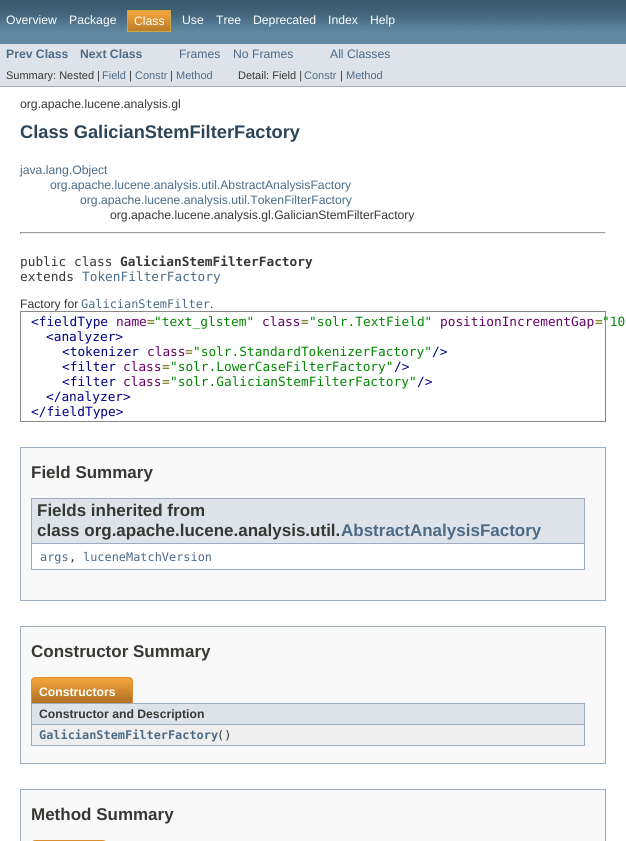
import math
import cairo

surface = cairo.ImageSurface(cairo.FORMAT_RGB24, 626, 841)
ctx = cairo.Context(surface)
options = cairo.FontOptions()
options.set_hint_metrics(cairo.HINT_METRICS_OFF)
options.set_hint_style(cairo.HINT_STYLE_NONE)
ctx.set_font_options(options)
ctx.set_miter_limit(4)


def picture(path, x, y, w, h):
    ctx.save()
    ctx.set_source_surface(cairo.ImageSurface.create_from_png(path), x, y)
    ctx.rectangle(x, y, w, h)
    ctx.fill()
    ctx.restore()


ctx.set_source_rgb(1, 1, 1)
ctx.paint()
picture("img1.png", 0, 0, 626, 44)
ctx.select_font_face("Liberation Sans")
ctx.set_font_size(12.2)
ctx.set_source_rgb(1, 1, 1)
ctx.move_to(6, 24)
ctx.show_text("Overview")
ctx.move_to(69, 24)
ctx.show_text("Package")
picture("img2.png", 128, 11, 42, 20)
ctx.rectangle(127.5, 10.5, 43, 21)
ctx.set_source_rgb(0.788, 0.667, 0.267)
ctx.set_line_width(1)
ctx.stroke()
ctx.set_source_rgb(1, 1, 1)
ctx.move_to(134, 25)
ctx.show_text("Class")
ctx.move_to(182, 24)
ctx.show_text("Use")
ctx.move_to(216, 24)
ctx.show_text("Tree")
ctx.move_to(253, 24)
ctx.show_text("Deprecated")
ctx.move_to(328, 24)
ctx.show_text("Index")
ctx.move_to(370, 24)
ctx.show_text("Help")
ctx.set_source_rgb(0.871, 0.89, 0.914)
ctx.rectangle(0, 44, 626, 42)
ctx.fill()
ctx.set_source_rgb(0.62, 0.678, 0.753)
ctx.rectangle(0, 86, 626, 1)
ctx.fill()
ctx.select_font_face("Liberation Sans", cairo.FONT_SLANT_NORMAL, cairo.FONT_WEIGHT_BOLD)
ctx.set_source_rgb(0.298, 0.42, 0.529)
ctx.move_to(6, 58)
ctx.show_text("Prev Class")
ctx.move_to(80, 58)
ctx.show_text("Next Class")
ctx.select_font_face("Liberation Sans")
ctx.move_to(179, 58)
ctx.show_text("Frames")
ctx.move_to(233, 58)
ctx.show_text("No Frames")
ctx.move_to(330, 58)
ctx.show_text("All Classes")
ctx.set_font_size(11)
ctx.set_source_rgb(0.208, 0.22, 0.2)
ctx.move_to(6, 79)
ctx.show_text("Summary: Nested |")
ctx.set_source_rgb(0.298, 0.42, 0.529)
ctx.move_to(102, 79)
ctx.show_text("Field")
ctx.set_source_rgb(0.208, 0.22, 0.2)
ctx.move_to(129, 79)
ctx.show_text("|")
ctx.set_source_rgb(0.298, 0.42, 0.529)
ctx.move_to(135, 79)
ctx.show_text("Constr")
ctx.set_source_rgb(0.208, 0.22, 0.2)
ctx.move_to(170, 79)
ctx.show_text("|")
ctx.set_source_rgb(0.298, 0.42, 0.529)
ctx.move_to(176, 79)
ctx.show_text("Method")
ctx.set_source_rgb(0.208, 0.22, 0.2)
ctx.move_to(238, 79)
ctx.show_text("Detail: Field |")
ctx.set_source_rgb(0.298, 0.42, 0.529)
ctx.move_to(304, 79)
ctx.show_text("Constr")
ctx.set_source_rgb(0.208, 0.22, 0.2)
ctx.move_to(340, 79)
ctx.show_text("|")
ctx.set_source_rgb(0.298, 0.42, 0.529)
ctx.move_to(346, 79)
ctx.show_text("Method")
ctx.set_font_size(12.2)
ctx.set_source_rgb(0.208, 0.22, 0.2)
ctx.move_to(20, 108)
ctx.show_text("org.apache.lucene.analysis.gl")
ctx.select_font_face("Liberation Sans", cairo.FONT_SLANT_NORMAL, cairo.FONT_WEIGHT_BOLD)
ctx.set_font_size(18.25)
ctx.set_source_rgb(0.173, 0.271, 0.341)
ctx.move_to(20, 138)
ctx.show_text("Class GalicianStemFilterFactory")
ctx.select_font_face("Liberation Sans")
ctx.set_font_size(12.2)
ctx.set_source_rgb(0.298, 0.42, 0.529)
ctx.move_to(20, 174)
ctx.show_text("java.lang.Object")
ctx.move_to(50, 189)
ctx.show_text("org.apache.lucene.analysis.util.AbstractAnalysisFactory")
ctx.move_to(80, 204)
ctx.show_text("org.apache.lucene.analysis.util.TokenFilterFactory")
ctx.set_source_rgb(0.208, 0.22, 0.2)
ctx.move_to(110, 219)
ctx.show_text("org.apache.lucene.analysis.gl.GalicianStemFilterFactory")
ctx.set_source_rgb(0.624, 0.624, 0.624)
ctx.rectangle(20, 232, 586, 1)
ctx.fill()
ctx.set_source_rgb(0.933, 0.933, 0.933)
ctx.rectangle(605, 232, 1, 2)
ctx.fill()
ctx.rectangle(20, 233, 586, 1)
ctx.fill()
ctx.set_source_rgb(0.624, 0.624, 0.624)
ctx.rectangle(20, 232, 1, 2)
ctx.fill()
ctx.select_font_face("DejaVu Sans Mono")
ctx.set_font_size(12.8)
ctx.set_source_rgb(0.208, 0.22, 0.2)
ctx.move_to(20, 266)
ctx.show_text("public class")
ctx.select_font_face("DejaVu Sans Mono", cairo.FONT_SLANT_NORMAL, cairo.FONT_WEIGHT_BOLD)
ctx.move_to(120, 266)
ctx.show_text("GalicianStemFilterFactory")
ctx.select_font_face("DejaVu Sans Mono")
ctx.move_to(20, 281)
ctx.show_text("extends")
ctx.set_source_rgb(0.298, 0.42, 0.529)
ctx.move_to(82, 281)
ctx.show_text("TokenFilterFactory")
ctx.select_font_face("Liberation Sans")
ctx.set_font_size(12.2)
ctx.set_source_rgb(0.208, 0.22, 0.2)
ctx.move_to(20, 308)
ctx.show_text("Factory for")
ctx.select_font_face("DejaVu Sans Mono")
ctx.set_font_size(11.9)
ctx.set_source_rgb(0.298, 0.42, 0.529)
ctx.move_to(81, 308)
ctx.show_text("GalicianStemFilter")
ctx.select_font_face("Liberation Sans")
ctx.set_font_size(12.2)
ctx.set_source_rgb(0.208, 0.22, 0.2)
ctx.move_to(210, 308)
ctx.show_text(".")
ctx.rectangle(20.5, 311.5, 585, 110)
ctx.set_source_rgb(0.533, 0.533, 0.533)
ctx.stroke()
ctx.select_font_face("DejaVu Sans Mono")
ctx.set_font_size(12.8)
ctx.set_source_rgb(0, 0, 0.533)
ctx.move_to(31, 326)
ctx.show_text("<fieldType")
ctx.set_source_rgb(0.4, 0, 0.4)
ctx.move_to(116, 326)
ctx.show_text("name")
ctx.set_source_rgb(0.4, 0.4, 0)
ctx.move_to(147, 326)
ctx.show_text("=")
ctx.set_source_rgb(0, 0.533, 0)
ctx.move_to(154, 326)
ctx.show_text("\"text_glstem\"")
ctx.set_source_rgb(0.4, 0, 0.4)
ctx.move_to(262, 326)
ctx.show_text("class")
ctx.set_source_rgb(0.4, 0.4, 0)
ctx.move_to(301, 326)
ctx.show_text("=")
ctx.set_source_rgb(0, 0.533, 0)
ctx.move_to(309, 326)
ctx.show_text("\"solr.TextField\"")
ctx.set_source_rgb(0.4, 0, 0.4)
ctx.move_to(440, 326)
ctx.show_text("positionIncrementGap")
ctx.set_source_rgb(0.4, 0.4, 0)
ctx.move_to(595, 326)
ctx.show_text("=")
ctx.set_source_rgb(0, 0.533, 0)
ctx.move_to(602, 326)
ctx.show_text("\"10")
ctx.set_source_rgb(0, 0, 0.533)
ctx.move_to(46, 341)
ctx.show_text("<analyzer>")
ctx.move_to(62, 356)
ctx.show_text("<tokenizer")
ctx.set_source_rgb(0.4, 0, 0.4)
ctx.move_to(147, 356)
ctx.show_text("class")
ctx.set_source_rgb(0.4, 0.4, 0)
ctx.move_to(185, 356)
ctx.show_text("=")
ctx.set_source_rgb(0, 0.533, 0)
ctx.move_to(193, 356)
ctx.show_text("\"solr.StandardTokenizerFactory\"")
ctx.set_source_rgb(0, 0, 0.533)
ctx.move_to(432, 356)
ctx.show_text("/>")
ctx.move_to(62, 371)
ctx.show_text("<filter")
ctx.set_source_rgb(0.4, 0, 0.4)
ctx.move_to(123, 371)
ctx.show_text("class")
ctx.set_source_rgb(0.4, 0.4, 0)
ctx.move_to(162, 371)
ctx.show_text("=")
ctx.set_source_rgb(0, 0.533, 0)
ctx.move_to(170, 371)
ctx.show_text("\"solr.LowerCaseFilterFactory\"")
ctx.set_source_rgb(0, 0, 0.533)
ctx.move_to(394, 371)
ctx.show_text("/>")
ctx.move_to(62, 386)
ctx.show_text("<filter")
ctx.set_source_rgb(0.4, 0, 0.4)
ctx.move_to(123, 386)
ctx.show_text("class")
ctx.set_source_rgb(0.4, 0.4, 0)
ctx.move_to(162, 386)
ctx.show_text("=")
ctx.set_source_rgb(0, 0.533, 0)
ctx.move_to(170, 386)
ctx.show_text("\"solr.GalicianStemFilterFactory\"")
ctx.set_source_rgb(0, 0, 0.533)
ctx.move_to(417, 386)
ctx.show_text("/>")
ctx.move_to(46, 401)
ctx.show_text("</analyzer>")
ctx.move_to(31, 416)
ctx.show_text("</fieldType>")
ctx.set_source_rgb(0.976, 0.976, 0.976)
ctx.rectangle(20.5, 447.5, 585, 153)
ctx.fill_preserve()
ctx.set_source_rgb(0.62, 0.678, 0.753)
ctx.stroke()
ctx.select_font_face("Liberation Sans", cairo.FONT_SLANT_NORMAL, cairo.FONT_WEIGHT_BOLD)
ctx.set_font_size(17)
ctx.set_source_rgb(0.208, 0.22, 0.2)
ctx.move_to(31, 478)
ctx.show_text("Field Summary")
ctx.set_source_rgb(1, 1, 1)
ctx.rectangle(32, 544, 552, 25)
ctx.fill()
ctx.set_source_rgb(0.62, 0.678, 0.753)
ctx.rectangle(584, 498, 1, 72)
ctx.fill()
ctx.rectangle(31, 569, 554, 1)
ctx.fill()
ctx.rectangle(31, 498, 1, 72)
ctx.fill()
ctx.set_source_rgb(0.871, 0.89, 0.914)
ctx.rectangle(32, 499, 552, 44)
ctx.fill()
ctx.set_source_rgb(0.62, 0.678, 0.753)
ctx.rectangle(32, 498, 552, 1)
ctx.fill()
ctx.rectangle(32, 543, 552, 1)
ctx.fill()
ctx.set_source_rgb(0.208, 0.22, 0.2)
ctx.move_to(37, 516)
ctx.show_text("Fields inherited from")
ctx.move_to(37, 536)
ctx.show_text("class org.apache.lucene.analysis.util.")
ctx.set_source_rgb(0.298, 0.42, 0.529)
ctx.move_to(341, 536)
ctx.show_text("AbstractAnalysisFactory")
ctx.select_font_face("DejaVu Sans Mono")
ctx.set_font_size(11.9)
ctx.move_to(40, 561)
ctx.show_text("args")
ctx.set_source_rgb(0.208, 0.22, 0.2)
ctx.move_to(69, 561)
ctx.show_text(",")
ctx.set_source_rgb(0.298, 0.42, 0.529)
ctx.move_to(83, 561)
ctx.show_text("luceneMatchVersion")
ctx.set_source_rgb(0.976, 0.976, 0.976)
ctx.rectangle(20.5, 626.5, 585, 137)
ctx.fill_preserve()
ctx.set_source_rgb(0.62, 0.678, 0.753)
ctx.stroke()
ctx.select_font_face("Liberation Sans", cairo.FONT_SLANT_NORMAL, cairo.FONT_WEIGHT_BOLD)
ctx.set_font_size(17)
ctx.set_source_rgb(0.208, 0.22, 0.2)
ctx.move_to(31, 657)
ctx.show_text("Constructor Summary")
ctx.set_source_rgb(0.62, 0.678, 0.753)
ctx.rectangle(31, 745, 554, 1)
ctx.fill()
picture("img3.png", 31, 677, 84, 26)
ctx.set_font_size(12.2)
ctx.set_source_rgb(1, 1, 1)
ctx.move_to(39, 696)
ctx.show_text("Constructors")
picture("img4.png", 115, 677, 18, 26)
ctx.set_source_rgb(0.871, 0.89, 0.914)
ctx.rectangle(31.5, 703.5, 553, 21)
ctx.fill_preserve()
ctx.set_source_rgb(0.62, 0.678, 0.753)
ctx.stroke()
ctx.set_source_rgb(0.208, 0.22, 0.2)
ctx.move_to(39, 718)
ctx.show_text("Constructor and Description")
ctx.set_source_rgb(0.933, 0.933, 0.937)
ctx.rectangle(32, 725, 552, 20)
ctx.fill()
ctx.set_source_rgb(0.62, 0.678, 0.753)
ctx.rectangle(584, 725, 1, 20)
ctx.fill()
ctx.rectangle(31, 725, 1, 20)
ctx.fill()
ctx.select_font_face("DejaVu Sans Mono", cairo.FONT_SLANT_NORMAL, cairo.FONT_WEIGHT_BOLD)
ctx.set_font_size(11.9)
ctx.set_source_rgb(0.298, 0.42, 0.529)
ctx.move_to(39, 739)
ctx.show_text("GalicianStemFilterFactory")
ctx.select_font_face("DejaVu Sans Mono")
ctx.set_source_rgb(0.208, 0.22, 0.2)
ctx.move_to(217, 739)
ctx.show_text("()")
ctx.set_source_rgb(0.976, 0.976, 0.976)
ctx.rectangle(20.5, 789.5, 585, 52)
ctx.fill_preserve()
ctx.set_source_rgb(0.62, 0.678, 0.753)
ctx.stroke()
ctx.select_font_face("Liberation Sans", cairo.FONT_SLANT_NORMAL, cairo.FONT_WEIGHT_BOLD)
ctx.set_font_size(17)
ctx.set_source_rgb(0.208, 0.22, 0.2)
ctx.move_to(31, 820)
ctx.show_text("Method Summary")
picture("img5.png", 31, 840, 58, 1)
picture("img6.png", 89, 840, 18, 1)
surface.write_to_png("page.png")
